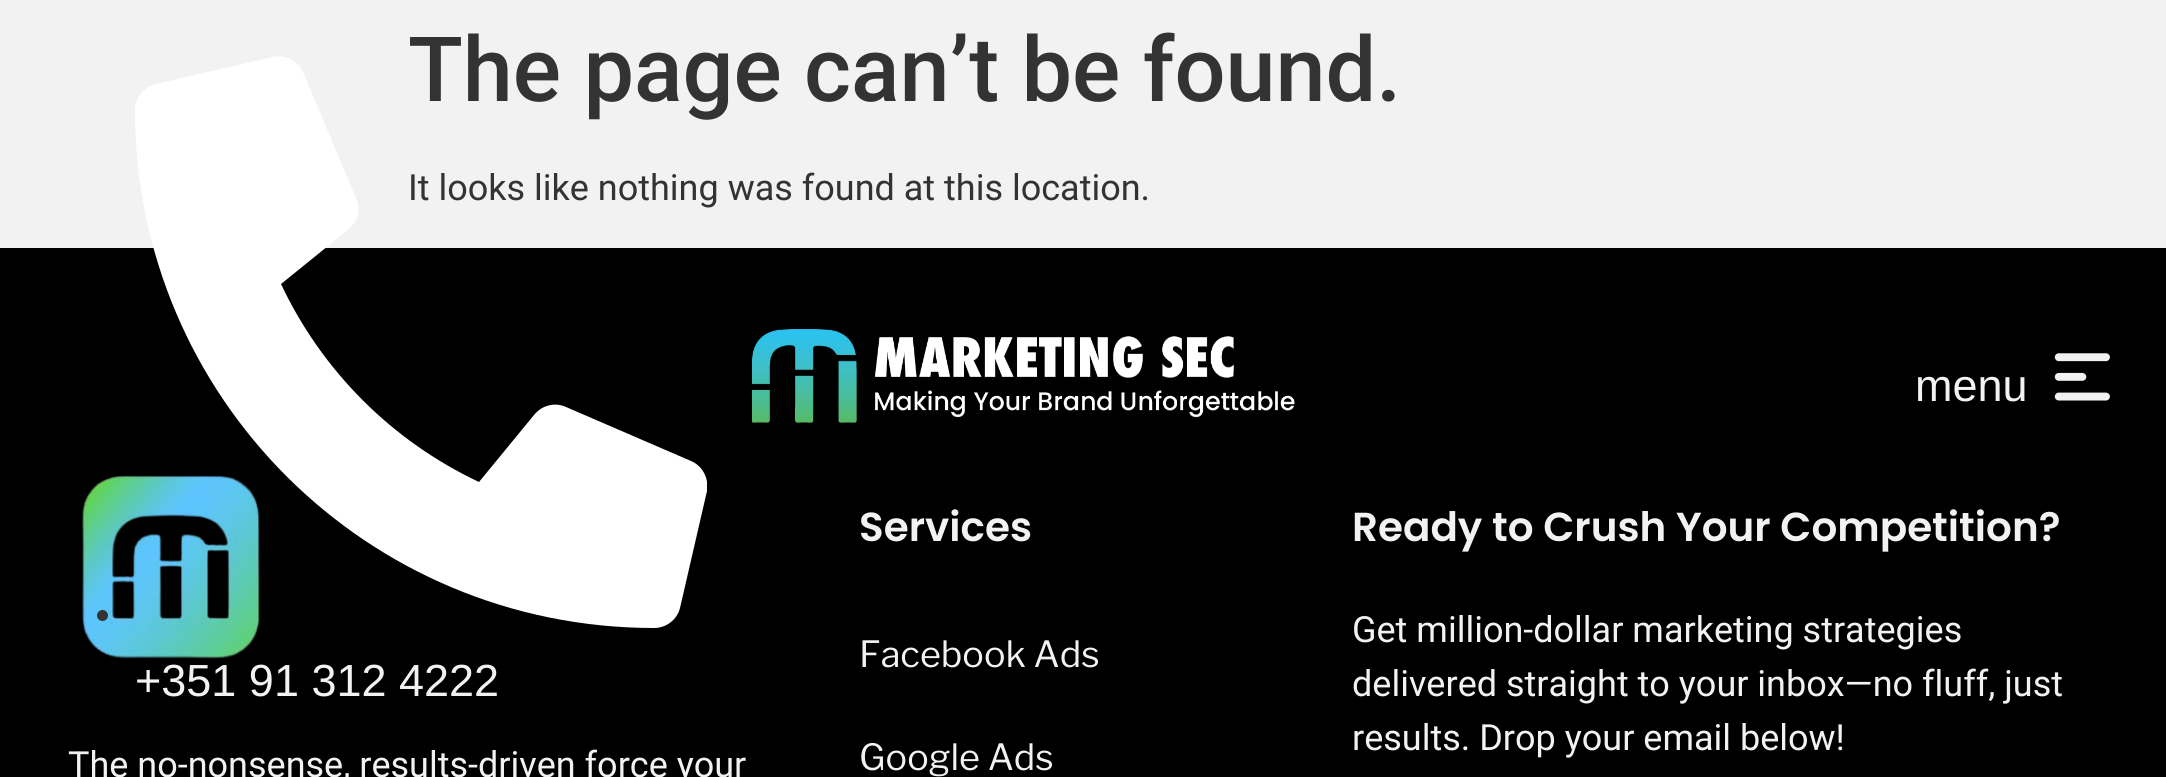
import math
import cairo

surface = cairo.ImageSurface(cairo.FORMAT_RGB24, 2166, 777)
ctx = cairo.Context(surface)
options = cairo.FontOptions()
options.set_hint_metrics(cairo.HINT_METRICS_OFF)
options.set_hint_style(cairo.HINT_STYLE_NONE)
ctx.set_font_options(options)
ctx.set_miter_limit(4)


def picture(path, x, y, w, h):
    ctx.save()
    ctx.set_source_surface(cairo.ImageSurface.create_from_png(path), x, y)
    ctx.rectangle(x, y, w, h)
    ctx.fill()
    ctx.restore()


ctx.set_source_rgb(0.949, 0.949, 0.949)
ctx.paint()
ctx.select_font_face("Roboto Medium")
ctx.set_font_size(90)
ctx.set_source_rgb(0.2, 0.2, 0.2)
ctx.move_to(408, 101)
ctx.show_text("The page can’t be found.")
ctx.select_font_face("Roboto")
ctx.set_font_size(36)
ctx.move_to(408, 200)
ctx.show_text("It looks like nothing was found at this location.")
ctx.set_source_rgb(0, 0, 0)
ctx.rectangle(0, 248, 2166, 529)
ctx.fill()
picture("img1.png", 752, 329, 543, 95)
ctx.select_font_face("Liberation Sans")
ctx.set_font_size(45)
ctx.set_source_rgb(0.949, 0.949, 0.949)
ctx.move_to(1915, 401)
ctx.show_text("menu")
picture("img2.png", 2054, 353, 56, 48)
picture("img3.png", 82, 475, 178, 184)
ctx.set_source_rgb(0.2, 0.2, 0.2)
ctx.arc(102.5, 615.5, 5.5, 0, 2 * math.pi)
ctx.fill()
ctx.set_source_rgb(0.949, 0.949, 0.949)
ctx.move_to(135, 696)
ctx.show_text("+351 91 312 4222")
ctx.save()
ctx.rectangle(135, 56, 572, 572)
ctx.clip()
ctx.set_source_rgb(1, 1, 1)
ctx.new_path()
ctx.move_to(691, 461)
ctx.line_to(566, 407)
ctx.curve_to(555, 402, 542, 405, 534, 415)
ctx.line_to(479, 482)
ctx.curve_to(392, 441, 322, 371, 281, 284)
ctx.line_to(349, 229)
ctx.curve_to(358, 221, 361, 209, 356, 198)
ctx.line_to(303, 72)
ctx.curve_to(298, 61, 285, 54, 272, 57)
ctx.line_to(156, 84)
ctx.curve_to(144, 87, 135, 97, 135, 110)
ctx.curve_to(135, 397, 367, 628, 654, 628)
ctx.curve_to(666, 628, 677, 620, 680, 608)
ctx.line_to(707, 491)
ctx.curve_to(709, 479, 703, 466, 691, 461)
ctx.close_path()
ctx.fill()
ctx.restore()
ctx.select_font_face("Poppins SemiBold")
ctx.set_font_size(40.5)
ctx.move_to(859, 541)
ctx.show_text("Services")
ctx.select_font_face("Libre Franklin")
ctx.set_font_size(36)
ctx.move_to(859, 667)
ctx.show_text("Facebook Ads")
ctx.move_to(859, 770)
ctx.show_text("Google Ads")
ctx.select_font_face("Poppins SemiBold")
ctx.set_font_size(40.5)
ctx.move_to(1352, 541)
ctx.show_text("Ready to Crush Your Competition?")
ctx.select_font_face("Roboto")
ctx.set_font_size(36)
ctx.move_to(1352, 642)
ctx.show_text("Get million-dollar marketing strategies")
ctx.move_to(1352, 696)
ctx.show_text("delivered straight to your inbox—no fluff, just")
ctx.move_to(1352, 750)
ctx.show_text("results. Drop your email below!")
ctx.move_to(68, 777)
ctx.show_text("The no-nonsense, results-driven force your")
surface.write_to_png("page.png")
